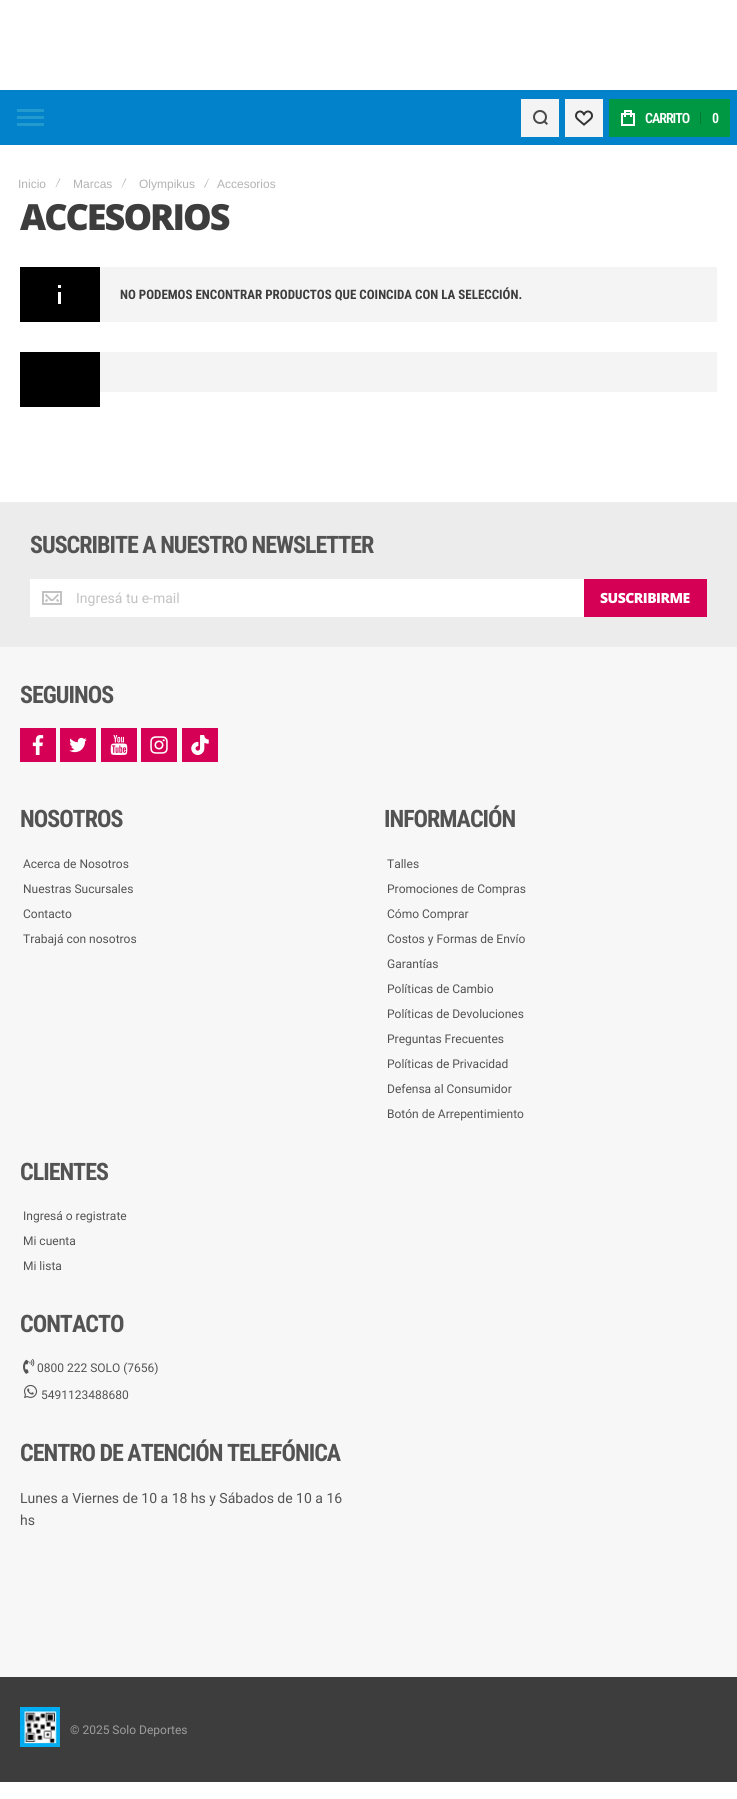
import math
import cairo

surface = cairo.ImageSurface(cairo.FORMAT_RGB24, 737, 1799)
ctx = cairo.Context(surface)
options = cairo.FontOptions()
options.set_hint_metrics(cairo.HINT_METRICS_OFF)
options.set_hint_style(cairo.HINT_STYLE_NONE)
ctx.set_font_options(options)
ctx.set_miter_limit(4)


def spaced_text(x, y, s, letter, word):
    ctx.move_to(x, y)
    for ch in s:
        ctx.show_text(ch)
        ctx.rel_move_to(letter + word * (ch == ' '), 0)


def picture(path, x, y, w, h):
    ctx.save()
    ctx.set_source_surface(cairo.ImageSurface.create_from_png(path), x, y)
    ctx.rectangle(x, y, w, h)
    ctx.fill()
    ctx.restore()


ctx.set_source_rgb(1, 1, 1)
ctx.paint()
ctx.set_source_rgb(0.004, 0.51, 0.792)
ctx.rectangle(0, 90, 737, 55)
ctx.fill()
ctx.set_source_rgb(0.133, 0.604, 0.804)
ctx.rectangle(17, 109, 27, 3)
ctx.fill()
ctx.rectangle(17, 116, 27, 3)
ctx.fill()
ctx.rectangle(17, 123, 27, 3)
ctx.fill()
ctx.set_source_rgb(0.957, 0.957, 0.957)
ctx.rectangle(521, 99, 38, 38)
ctx.fill()
picture("img1.png", 533, 110, 15, 15)
ctx.rectangle(565, 99, 38, 38)
ctx.fill()
picture("img2.png", 575, 110, 18, 16)
ctx.set_source_rgb(0, 0.596, 0.263)
ctx.rectangle(609, 99, 121, 38)
ctx.fill()
picture("img3.png", 621, 110, 14, 16)
ctx.select_font_face("Roboto Condensed SemiBold")
ctx.set_font_size(14)
ctx.set_source_rgb(1, 1, 1)
spaced_text(645, 123, "CARRITO", -1, 0)
ctx.set_source_rgb(0, 0.471, 0.208)
ctx.rectangle(700, 112, 1, 12)
ctx.fill()
ctx.set_source_rgb(1, 1, 1)
spaced_text(712, 123, "0", -1, 0)
ctx.select_font_face("Liberation Sans")
ctx.set_font_size(12)
ctx.set_source_rgb(0.702, 0.702, 0.702)
ctx.move_to(18, 188)
ctx.show_text("Inicio")
ctx.new_path()
ctx.move_to(59.5, 178.5)
ctx.line_to(60.5, 178.5)
ctx.line_to(56, 187.5)
ctx.line_to(55.5, 187.5)
ctx.close_path()
ctx.fill()
ctx.move_to(73, 188)
ctx.show_text("Marcas")
ctx.new_path()
ctx.move_to(125.5, 178.5)
ctx.line_to(126.5, 178.5)
ctx.line_to(122, 187.5)
ctx.line_to(121.5, 187.5)
ctx.close_path()
ctx.fill()
ctx.move_to(139, 188)
ctx.show_text("Olympikus")
ctx.new_path()
ctx.move_to(208.5, 178.5)
ctx.line_to(209, 178.5)
ctx.line_to(205, 187.5)
ctx.line_to(204, 187.5)
ctx.close_path()
ctx.fill()
ctx.move_to(217, 188)
ctx.show_text("Accesorios")
ctx.select_font_face("Open Sans ExtraBold")
ctx.set_font_size(36)
ctx.set_source_rgb(0.239, 0.239, 0.239)
spaced_text(20, 230, "ACCESORIOS", -2, 0)
ctx.set_source_rgb(0.957, 0.957, 0.957)
ctx.rectangle(100, 267, 617, 55)
ctx.fill()
ctx.set_source_rgb(0, 0, 0)
ctx.rectangle(20, 267, 80, 55)
ctx.fill()
ctx.set_source_rgb(1, 1, 1)
ctx.rectangle(58, 285, 3, 3)
ctx.fill()
ctx.rectangle(58, 292, 3, 12)
ctx.fill()
ctx.select_font_face("Roboto Condensed", cairo.FONT_SLANT_NORMAL, cairo.FONT_WEIGHT_BOLD)
ctx.set_font_size(13)
ctx.set_source_rgb(0.239, 0.239, 0.239)
ctx.move_to(120, 299)
ctx.show_text("NO PODEMOS ENCONTRAR PRODUCTOS QUE COINCIDA CON LA SELECCIÓN.")
ctx.set_source_rgb(0.957, 0.957, 0.957)
ctx.rectangle(100, 352, 617, 40)
ctx.fill()
ctx.set_source_rgb(0, 0, 0)
ctx.rectangle(20, 352, 80, 55)
ctx.fill()
ctx.set_source_rgb(0.965, 0.965, 0.965)
ctx.rectangle(0, 647, 737, 1030)
ctx.fill()
ctx.set_source_rgb(0.922, 0.922, 0.922)
ctx.rectangle(0, 502, 737, 145)
ctx.fill()
ctx.set_font_size(24)
ctx.set_source_rgb(0.325, 0.325, 0.325)
spaced_text(30, 553, "SUSCRIBITE A NUESTRO NEWSLETTER", -1, 0)
ctx.set_source_rgb(1, 1, 1)
ctx.rectangle(30, 579, 554, 38)
ctx.fill()
picture("img4.png", 42, 591, 20, 14)
ctx.select_font_face("Roboto")
ctx.set_font_size(14)
ctx.set_source_rgb(0.761, 0.761, 0.761)
ctx.move_to(76, 603)
ctx.show_text("Ingresá tu e-mail")
ctx.set_source_rgb(0.835, 0, 0.337)
ctx.rectangle(584, 579, 123, 38)
ctx.fill()
ctx.select_font_face("Open Sans ExtraBold")
ctx.set_source_rgb(1, 1, 1)
spaced_text(600, 603, "SUSCRIBIRME", -0.5, 0)
ctx.select_font_face("Roboto Condensed", cairo.FONT_SLANT_NORMAL, cairo.FONT_WEIGHT_BOLD)
ctx.set_font_size(24)
ctx.set_source_rgb(0.325, 0.325, 0.325)
spaced_text(20, 703, "SEGUINOS", -1, 0)
ctx.set_source_rgb(0.835, 0, 0.337)
ctx.rectangle(20, 728, 36, 34)
ctx.fill()
picture("img5.png", 32, 735, 12, 20)
ctx.rectangle(60, 728, 36, 34)
ctx.fill()
picture("img6.png", 69, 737, 18, 16)
ctx.rectangle(101, 728, 36, 34)
ctx.fill()
ctx.select_font_face("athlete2")
ctx.set_font_size(20)
ctx.set_source_rgb(1, 1, 1)
ctx.move_to(109, 755)
ctx.show_text("4")
ctx.set_source_rgb(0.835, 0, 0.337)
ctx.rectangle(141, 728, 36, 34)
ctx.fill()
picture("img7.png", 150, 736, 18, 18)
ctx.rectangle(182, 728, 36, 34)
ctx.fill()
ctx.set_source_rgb(1, 1, 1)
ctx.move_to(190, 755)
ctx.show_text(";")
ctx.select_font_face("Roboto Condensed", cairo.FONT_SLANT_NORMAL, cairo.FONT_WEIGHT_BOLD)
ctx.set_font_size(24)
ctx.set_source_rgb(0.325, 0.325, 0.325)
spaced_text(20, 827, "NOSOTROS", -1, 0)
ctx.select_font_face("Roboto")
ctx.set_font_size(12)
ctx.move_to(23, 868)
ctx.show_text("Acerca de Nosotros")
ctx.move_to(23, 893)
ctx.show_text("Nuestras Sucursales")
ctx.move_to(23, 918)
ctx.show_text("Contacto")
ctx.move_to(23, 943)
ctx.show_text("Trabajá con nosotros")
ctx.select_font_face("Roboto Condensed", cairo.FONT_SLANT_NORMAL, cairo.FONT_WEIGHT_BOLD)
ctx.set_font_size(24)
spaced_text(384, 827, "INFORMACIÓN", -1, 0)
ctx.select_font_face("Roboto")
ctx.set_font_size(12)
ctx.move_to(387, 868)
ctx.show_text("Talles")
ctx.move_to(387, 893)
ctx.show_text("Promociones de Compras")
ctx.move_to(387, 918)
ctx.show_text("Cómo Comprar")
ctx.move_to(387, 943)
ctx.show_text("Costos y Formas de Envío")
ctx.move_to(387, 968)
ctx.show_text("Garantías")
ctx.move_to(387, 993)
ctx.show_text("Políticas de Cambio")
ctx.move_to(387, 1018)
ctx.show_text("Políticas de Devoluciones")
ctx.move_to(387, 1043)
ctx.show_text("Preguntas Frecuentes")
ctx.move_to(387, 1068)
ctx.show_text("Políticas de Privacidad")
ctx.move_to(387, 1093)
ctx.show_text("Defensa al Consumidor")
ctx.move_to(387, 1118)
ctx.show_text("Botón de Arrepentimiento")
ctx.select_font_face("Roboto Condensed", cairo.FONT_SLANT_NORMAL, cairo.FONT_WEIGHT_BOLD)
ctx.set_font_size(24)
spaced_text(20, 1180, "CLIENTES", -1, 0)
ctx.select_font_face("Roboto")
ctx.set_font_size(12)
ctx.move_to(23, 1220)
ctx.show_text("Ingresá o registrate")
ctx.move_to(23, 1245)
ctx.show_text("Mi cuenta")
ctx.move_to(23, 1270)
ctx.show_text("Mi lista")
ctx.select_font_face("Roboto Condensed", cairo.FONT_SLANT_NORMAL, cairo.FONT_WEIGHT_BOLD)
ctx.set_font_size(24)
spaced_text(20, 1332, "CONTACTO", -1, 0)
picture("img8.png", 23, 1358, 12, 16)
ctx.select_font_face("Roboto")
ctx.set_font_size(12)
ctx.move_to(37, 1372)
ctx.show_text("0800 222 SOLO (7656)")
picture("img9.png", 24, 1384, 14, 14)
ctx.move_to(41, 1399)
ctx.show_text("5491123488680")
ctx.select_font_face("Roboto Condensed", cairo.FONT_SLANT_NORMAL, cairo.FONT_WEIGHT_BOLD)
ctx.set_font_size(24)
spaced_text(20, 1461, "CENTRO DE ATENCIÓN TELEFÓNICA", -1, 0)
ctx.select_font_face("Roboto")
ctx.set_font_size(14)
ctx.move_to(20, 1503)
ctx.show_text("Lunes a Viernes de 10 a 18 hs y Sábados de 10 a 16")
ctx.move_to(20, 1525)
ctx.show_text("hs")
ctx.set_source_rgb(0.239, 0.239, 0.239)
ctx.rectangle(0, 1677, 737, 105)
ctx.fill()
picture("img10.png", 20, 1707, 40, 40)
ctx.set_font_size(12)
ctx.set_source_rgb(0.616, 0.616, 0.616)
ctx.move_to(70, 1734)
ctx.show_text("© 2025 Solo Deportes")
surface.write_to_png("page.png")
